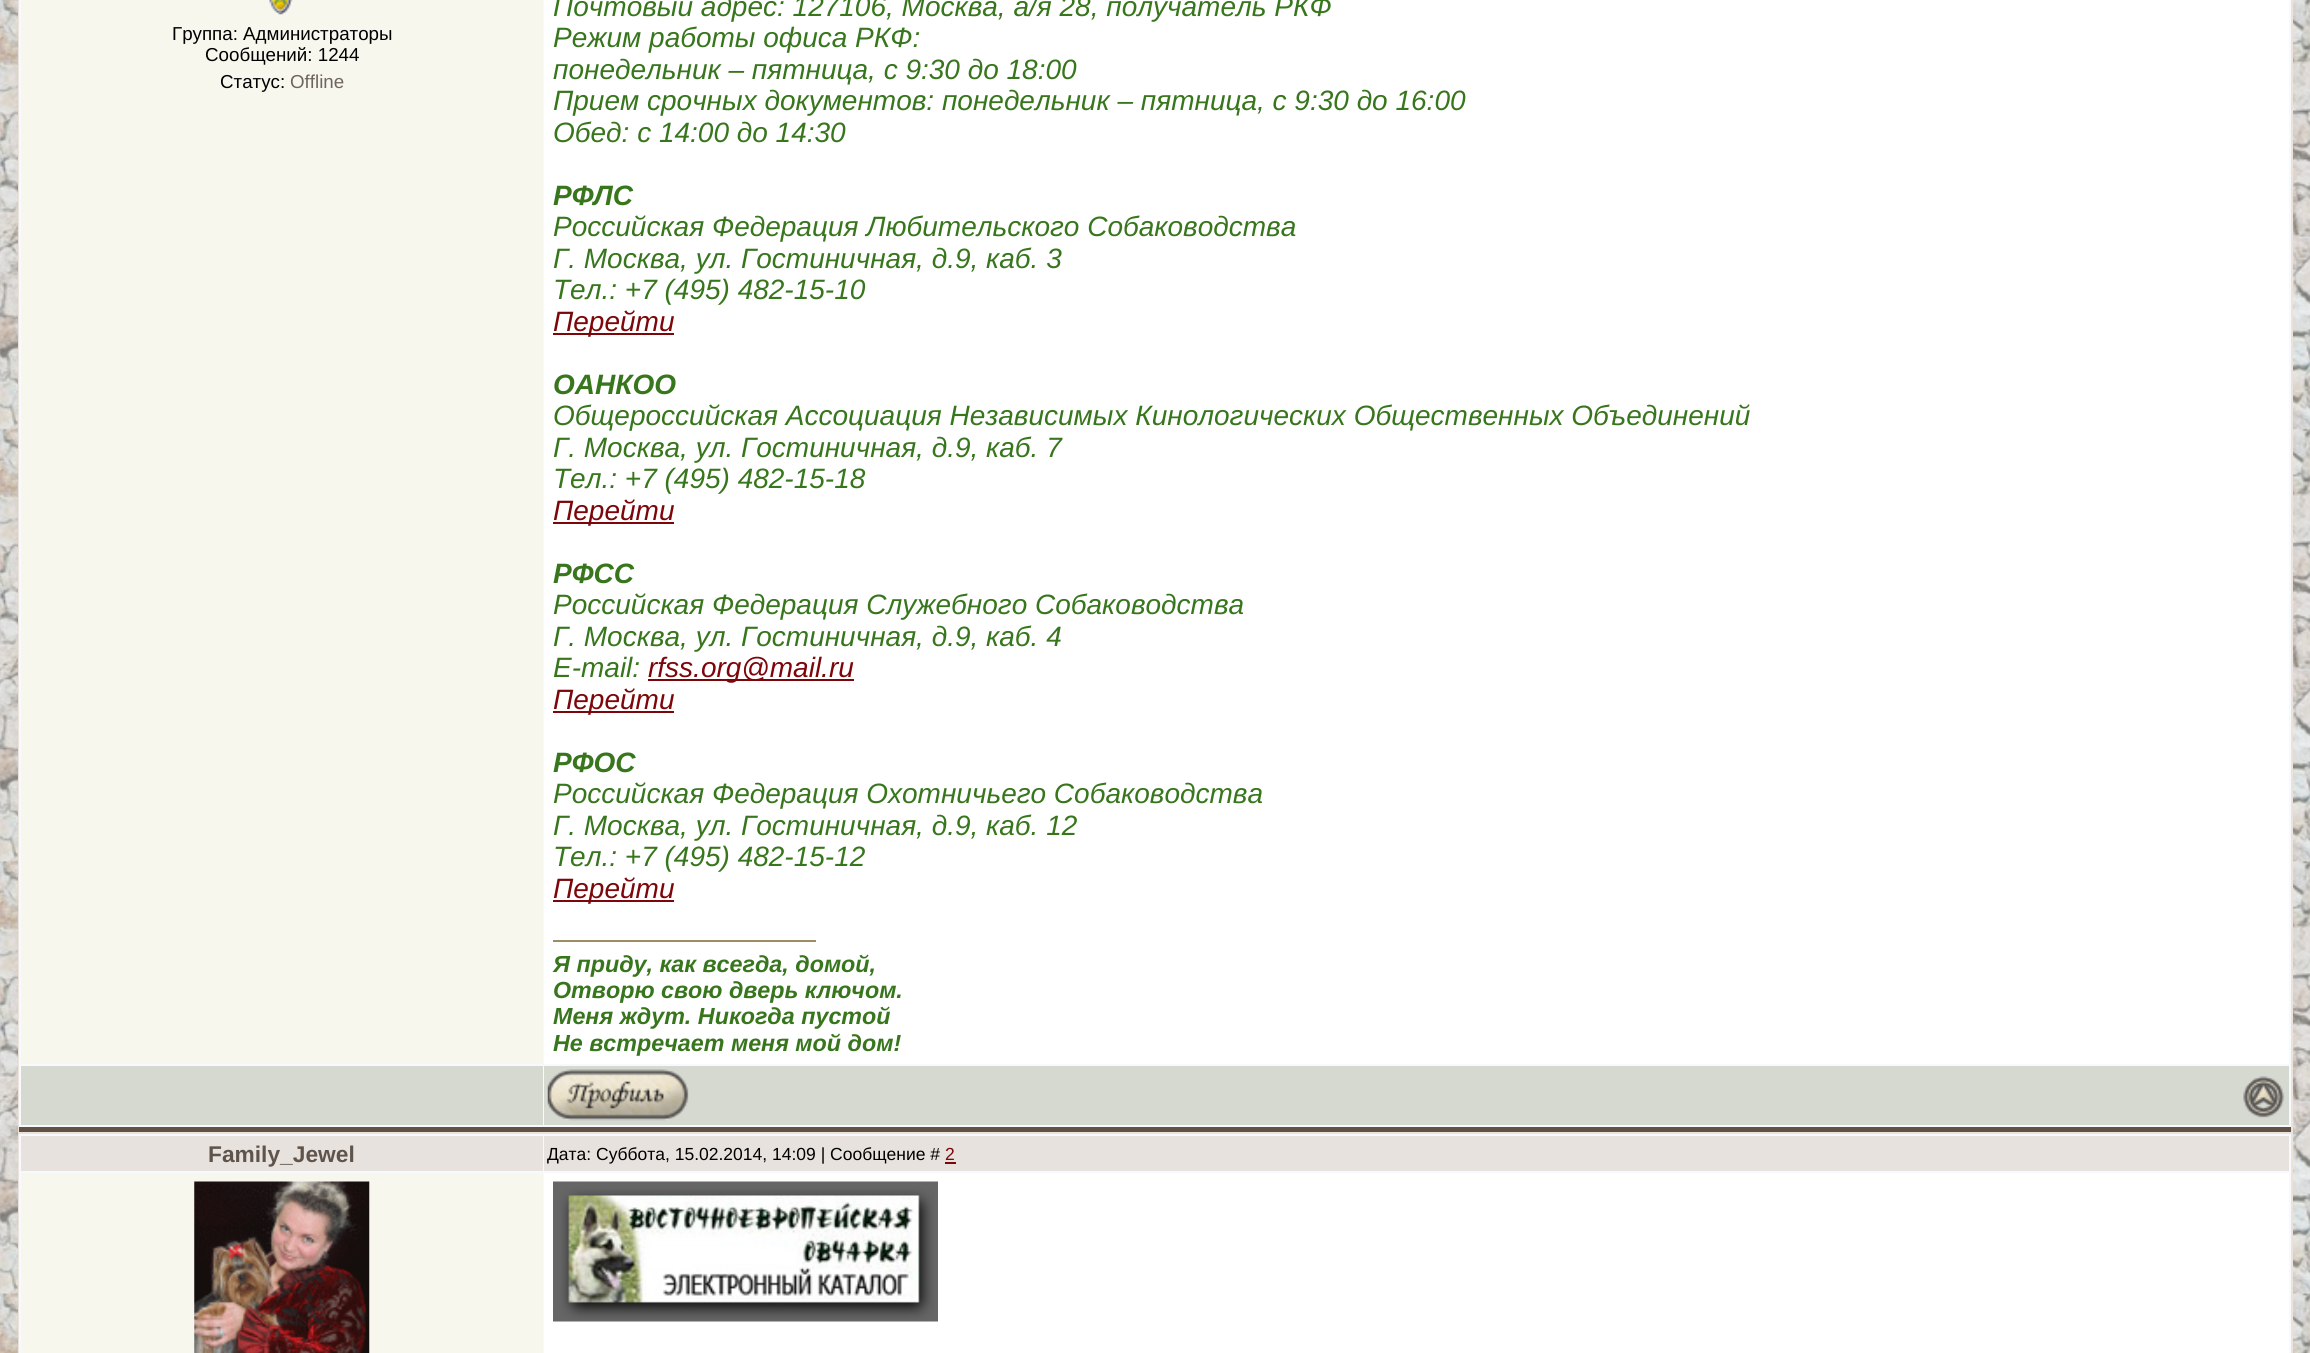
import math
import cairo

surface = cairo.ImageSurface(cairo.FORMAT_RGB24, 2310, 1353)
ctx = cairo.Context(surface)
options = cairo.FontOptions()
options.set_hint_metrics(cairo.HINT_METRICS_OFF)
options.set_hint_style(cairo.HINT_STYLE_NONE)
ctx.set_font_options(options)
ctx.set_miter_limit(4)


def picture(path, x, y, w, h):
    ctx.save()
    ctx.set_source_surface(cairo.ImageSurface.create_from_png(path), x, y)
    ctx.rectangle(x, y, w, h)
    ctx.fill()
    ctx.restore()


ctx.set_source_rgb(1, 1, 1)
ctx.paint()
picture("img1.png", 0, 0, 2310, 1353)
ctx.set_source_rgb(0.925, 0.886, 0.851)
ctx.rectangle(18, 0, 2275, 1353)
ctx.fill()
ctx.set_source_rgb(0.961, 0.976, 0.992)
ctx.rectangle(19, 0, 2272, 1127)
ctx.fill()
ctx.set_source_rgb(0.384, 0.322, 0.275)
ctx.rectangle(19, 1127, 2272, 5)
ctx.fill()
ctx.set_source_rgb(0.965, 0.965, 0.933)
ctx.rectangle(21, 0, 522, 1064)
ctx.fill()
picture("img2.png", 269, 0, 24, 15)
ctx.select_font_face("Liberation Sans")
ctx.set_font_size(18.75)
ctx.set_source_rgb(0, 0, 0)
ctx.move_to(172, 40)
ctx.show_text("Группа: Администраторы")
ctx.move_to(205, 61)
ctx.show_text("Сообщений: 1244")
ctx.move_to(220, 88)
ctx.show_text("Статус:")
ctx.set_source_rgb(0.435, 0.392, 0.376)
ctx.move_to(290, 88)
ctx.show_text("Offline")
ctx.set_source_rgb(1, 1, 1)
ctx.rectangle(544, 0, 1745, 1064)
ctx.fill()
ctx.select_font_face("Liberation Sans", cairo.FONT_SLANT_ITALIC)
ctx.set_font_size(28)
ctx.set_source_rgb(0.22, 0.463, 0.114)
ctx.move_to(553, 16)
ctx.show_text("Почтовый адрес: 127106, Москва, а/я 28, получатель РКФ")
ctx.move_to(553, 47)
ctx.show_text("Режим работы офиса РКФ:")
ctx.move_to(553, 79)
ctx.show_text("понедельник – пятница, с 9:30 до 18:00")
ctx.move_to(553, 110)
ctx.show_text("Прием срочных документов: понедельник – пятница, с 9:30 до 16:00")
ctx.move_to(553, 142)
ctx.show_text("Обед: с 14:00 до 14:30")
ctx.select_font_face("Liberation Sans", cairo.FONT_SLANT_ITALIC, cairo.FONT_WEIGHT_BOLD)
ctx.move_to(553, 205)
ctx.show_text("РФЛС")
ctx.select_font_face("Liberation Sans", cairo.FONT_SLANT_ITALIC)
ctx.move_to(553, 236)
ctx.show_text("Российская Федерация Любительского Собаководства")
ctx.move_to(553, 268)
ctx.show_text("Г. Москва, ул. Гостиничная, д.9, каб. 3")
ctx.move_to(553, 299)
ctx.show_text("Тел.: +7 (495) 482-15-10")
ctx.set_source_rgb(0.486, 0.027, 0.039)
ctx.rectangle(553, 333, 121, 2)
ctx.fill()
ctx.move_to(553, 331)
ctx.show_text("Перейти")
ctx.select_font_face("Liberation Sans", cairo.FONT_SLANT_ITALIC, cairo.FONT_WEIGHT_BOLD)
ctx.set_source_rgb(0.22, 0.463, 0.114)
ctx.move_to(553, 394)
ctx.show_text("ОАНКОО")
ctx.select_font_face("Liberation Sans", cairo.FONT_SLANT_ITALIC)
ctx.move_to(553, 425)
ctx.show_text("Общероссийская Ассоциация Независимых Кинологических Общественных Объединений")
ctx.move_to(553, 457)
ctx.show_text("Г. Москва, ул. Гостиничная, д.9, каб. 7")
ctx.move_to(553, 488)
ctx.show_text("Тел.: +7 (495) 482-15-18")
ctx.set_source_rgb(0.486, 0.027, 0.039)
ctx.rectangle(553, 522, 121, 2)
ctx.fill()
ctx.move_to(553, 520)
ctx.show_text("Перейти")
ctx.select_font_face("Liberation Sans", cairo.FONT_SLANT_ITALIC, cairo.FONT_WEIGHT_BOLD)
ctx.set_source_rgb(0.22, 0.463, 0.114)
ctx.move_to(553, 583)
ctx.show_text("РФСС")
ctx.select_font_face("Liberation Sans", cairo.FONT_SLANT_ITALIC)
ctx.move_to(553, 614)
ctx.show_text("Российская Федерация Служебного Собаководства")
ctx.move_to(553, 646)
ctx.show_text("Г. Москва, ул. Гостиничная, д.9, каб. 4")
ctx.move_to(553, 677)
ctx.show_text("E-mail:")
ctx.set_source_rgb(0.486, 0.027, 0.039)
ctx.rectangle(648, 679, 206, 2)
ctx.fill()
ctx.move_to(648, 677)
ctx.show_text("rfss.org@mail.ru")
ctx.rectangle(553, 711, 121, 2)
ctx.fill()
ctx.move_to(553, 709)
ctx.show_text("Перейти")
ctx.select_font_face("Liberation Sans", cairo.FONT_SLANT_ITALIC, cairo.FONT_WEIGHT_BOLD)
ctx.set_source_rgb(0.22, 0.463, 0.114)
ctx.move_to(553, 772)
ctx.show_text("РФОС")
ctx.select_font_face("Liberation Sans", cairo.FONT_SLANT_ITALIC)
ctx.move_to(553, 803)
ctx.show_text("Российская Федерация Охотничьего Собаководства")
ctx.move_to(553, 835)
ctx.show_text("Г. Москва, ул. Гостиничная, д.9, каб. 12")
ctx.move_to(553, 866)
ctx.show_text("Тел.: +7 (495) 482-15-12")
ctx.set_source_rgb(0.486, 0.027, 0.039)
ctx.rectangle(553, 900, 121, 2)
ctx.fill()
ctx.move_to(553, 898)
ctx.show_text("Перейти")
ctx.set_source_rgb(0.616, 0.553, 0.388)
ctx.rectangle(553, 940, 263, 2)
ctx.fill()
ctx.select_font_face("Liberation Sans", cairo.FONT_SLANT_ITALIC, cairo.FONT_WEIGHT_BOLD)
ctx.set_font_size(23.3)
ctx.set_source_rgb(0.22, 0.463, 0.114)
ctx.move_to(553, 972)
ctx.show_text("Я приду, как всегда, домой,")
ctx.move_to(553, 998)
ctx.show_text("Отворю свою дверь ключом.")
ctx.move_to(553, 1024)
ctx.show_text("Меня ждут. Никогда пустой")
ctx.move_to(553, 1051)
ctx.show_text("Не встречает меня мой дом!")
ctx.set_source_rgb(0.839, 0.851, 0.816)
ctx.rectangle(21, 1066, 522, 59)
ctx.fill()
ctx.rectangle(544, 1066, 1745, 59)
ctx.fill()
picture("img3.png", 547, 1069, 142, 52)
picture("img4.png", 2243, 1076, 42, 42)
ctx.set_source_rgb(0.961, 0.976, 0.992)
ctx.rectangle(19, 1134, 2272, 219)
ctx.fill()
ctx.set_source_rgb(0.906, 0.886, 0.867)
ctx.rectangle(21, 1136, 522, 35)
ctx.fill()
ctx.select_font_face("Liberation Sans", cairo.FONT_SLANT_NORMAL, cairo.FONT_WEIGHT_BOLD)
ctx.set_font_size(22.75)
ctx.set_source_rgb(0.373, 0.329, 0.294)
ctx.move_to(208, 1162)
ctx.show_text("Family_Jewel")
ctx.set_source_rgb(0.906, 0.886, 0.867)
ctx.rectangle(544, 1136, 1745, 35)
ctx.fill()
ctx.select_font_face("Liberation Sans")
ctx.set_font_size(17.5)
ctx.set_source_rgb(0, 0, 0)
ctx.move_to(547, 1160)
ctx.show_text("Дата: Суббота, 15.02.2014, 14:09 | Сообщение #")
ctx.set_source_rgb(0.486, 0.027, 0.039)
ctx.move_to(945, 1160)
ctx.show_text("2")
ctx.rectangle(945, 1162, 11, 2)
ctx.fill()
ctx.set_source_rgb(0.965, 0.965, 0.933)
ctx.rectangle(21, 1173, 522, 180)
ctx.fill()
picture("img5.png", 194, 1181, 176, 172)
ctx.set_source_rgb(1, 1, 1)
ctx.rectangle(544, 1173, 1745, 180)
ctx.fill()
picture("img6.png", 553, 1181, 385, 141)
surface.write_to_png("page.png")
